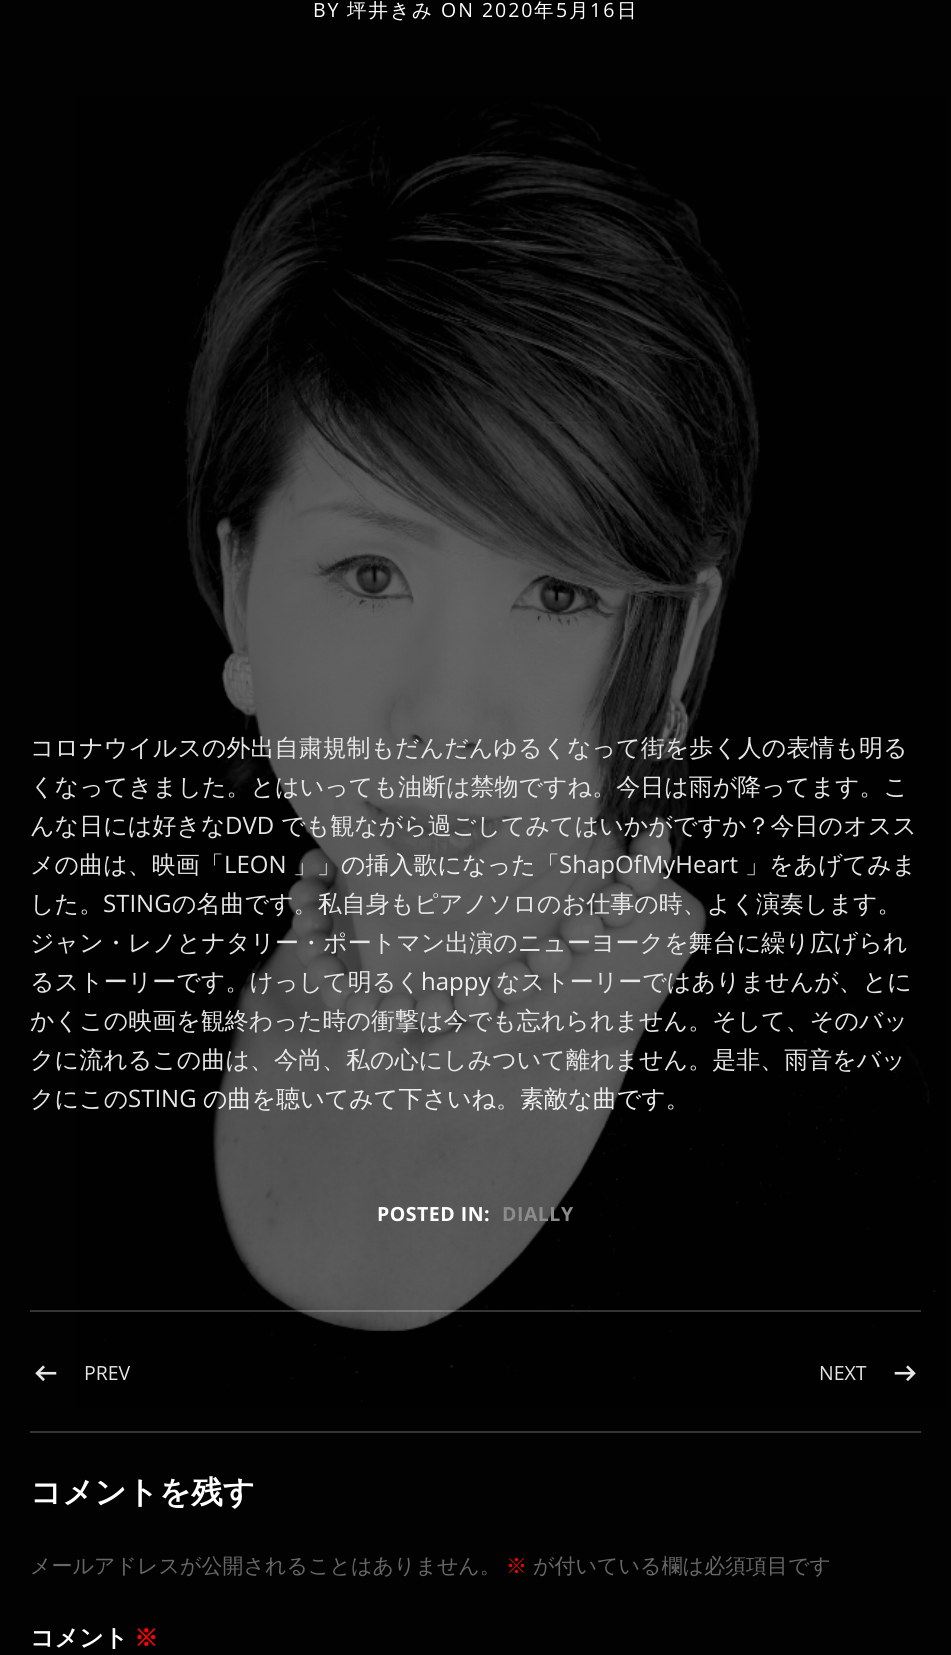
import math
import cairo

surface = cairo.ImageSurface(cairo.FORMAT_RGB24, 951, 1655)
ctx = cairo.Context(surface)
options = cairo.FontOptions()
options.set_hint_metrics(cairo.HINT_METRICS_OFF)
options.set_hint_style(cairo.HINT_STYLE_NONE)
ctx.set_font_options(options)
ctx.set_miter_limit(4)


def spaced_text(x, y, s, letter, word):
    ctx.move_to(x, y)
    for ch in s:
        ctx.show_text(ch)
        ctx.rel_move_to(letter + word * (ch == ' '), 0)


def picture(path, x, y, w, h):
    ctx.save()
    ctx.set_source_surface(cairo.ImageSurface.create_from_png(path), x, y)
    ctx.rectangle(x, y, w, h)
    ctx.fill()
    ctx.restore()


ctx.set_source_rgb(0.008, 0.008, 0.008)
ctx.paint()
picture("img1.png", 76, 96, 869, 1313)
ctx.select_font_face("Open Sans")
ctx.set_font_size(19.5)
ctx.set_source_rgb(1, 1, 1)
spaced_text(313, 17, "BY", 2, 0)
ctx.select_font_face("WenQuanYi Zen Hei Medium")
spaced_text(347, 17, "坪井きみ", 2, 0)
ctx.select_font_face("Open Sans")
spaced_text(441, 17, "ON 2020", 2, 0)
ctx.select_font_face("WenQuanYi Zen Hei Medium")
spaced_text(534, 17, "年", 2, 0)
ctx.select_font_face("Open Sans")
spaced_text(556, 17, "5", 2, 0)
ctx.select_font_face("WenQuanYi Zen Hei Medium")
spaced_text(569, 17, "月", 2, 0)
ctx.select_font_face("Open Sans")
spaced_text(590, 17, "16", 2, 0)
ctx.select_font_face("WenQuanYi Zen Hei Medium")
spaced_text(617, 17, "日", 2, 0)
ctx.set_font_size(24)
ctx.set_source_rgb(0.902, 0.902, 0.902)
ctx.move_to(30, 756)
ctx.show_text("コロナウイルスの外出自粛規制もだんだんゆるくなって街を歩く人の表情も明る")
ctx.move_to(30, 795)
ctx.show_text("くなってきました。とはいっても油断は禁物ですね。今日は雨が降ってます。こ")
ctx.move_to(30, 834)
ctx.show_text("んな日には好きな")
ctx.select_font_face("Open Sans")
ctx.move_to(225, 834)
ctx.show_text("DVD")
ctx.select_font_face("WenQuanYi Zen Hei Medium")
ctx.move_to(281, 834)
ctx.show_text("でも観ながら過ごしてみてはいかがですか？今日のオスス")
ctx.move_to(30, 873)
ctx.show_text("メの曲は、映画「")
ctx.select_font_face("Open Sans")
ctx.move_to(224, 873)
ctx.show_text("LEON")
ctx.select_font_face("WenQuanYi Zen Hei Medium")
ctx.set_source_rgb(0.933, 0.933, 0.933)
ctx.move_to(293, 873)
ctx.show_text("」」の挿入歌になった「")
ctx.select_font_face("Open Sans")
ctx.set_source_rgb(0.902, 0.902, 0.902)
ctx.move_to(559, 873)
ctx.show_text("ShapOfMyHeart")
ctx.select_font_face("WenQuanYi Zen Hei Medium")
ctx.move_to(745, 873)
ctx.show_text("」をあげてみま")
ctx.move_to(30, 912)
ctx.show_text("した。")
ctx.select_font_face("Open Sans")
ctx.move_to(103, 912)
ctx.show_text("STING")
ctx.select_font_face("WenQuanYi Zen Hei Medium")
ctx.move_to(172, 912)
ctx.show_text("の名曲です。私自身もピアノソロのお仕事の時、よく演奏します。")
ctx.move_to(30, 951)
ctx.show_text("ジャン・レノとナタリー・ポートマン出演のニューヨークを舞台に繰り広げられ")
ctx.move_to(30, 990)
ctx.show_text("るストーリーです。けっして明るく")
ctx.select_font_face("Open Sans")
ctx.set_source_rgb(0.933, 0.933, 0.933)
ctx.move_to(421, 990)
ctx.show_text("happy")
ctx.select_font_face("WenQuanYi Zen Hei Medium")
ctx.set_source_rgb(0.902, 0.902, 0.902)
ctx.move_to(496, 990)
ctx.show_text("なストーリーではありませんが、とに")
ctx.move_to(30, 1029)
ctx.show_text("かくこの映画を観終わった時の衝撃は今でも忘れられません。そして、そのバッ")
ctx.move_to(30, 1068)
ctx.show_text("クに流れるこの曲は、今尚、私の心にしみついて離れません。是非、雨音をバッ")
ctx.move_to(30, 1107)
ctx.show_text("クにこの")
ctx.select_font_face("Open Sans")
ctx.move_to(128, 1107)
ctx.show_text("STING")
ctx.select_font_face("WenQuanYi Zen Hei Medium")
ctx.set_source_rgb(0.933, 0.933, 0.933)
ctx.move_to(203, 1107)
ctx.show_text("の曲を聴いてみて下さいね。素敵な曲です。")
ctx.select_font_face("Open Sans", cairo.FONT_SLANT_NORMAL, cairo.FONT_WEIGHT_BOLD)
ctx.set_font_size(19.5)
ctx.set_source_rgb(1, 1, 1)
spaced_text(377, 1221, "POSTED IN:", 0.5, 0)
ctx.set_source_rgb(0.549, 0.549, 0.549)
spaced_text(502, 1221, "DIALLY", 0.5, 0)
ctx.set_source_rgba(1, 1, 1, 0.2)
ctx.rectangle(30, 1310, 891, 2)
ctx.fill()
picture("img2.png", 35, 1365, 22, 16)
ctx.select_font_face("Open Sans")
ctx.set_source_rgb(0.902, 0.902, 0.902)
ctx.move_to(84, 1380)
ctx.show_text("PREV")
ctx.move_to(819, 1380)
ctx.show_text("NEXT")
picture("img3.png", 894, 1365, 22, 16)
ctx.set_source_rgb(0.208, 0.208, 0.208)
ctx.rectangle(30, 1431, 891, 2)
ctx.fill()
ctx.select_font_face("WenQuanYi Zen Hei", cairo.FONT_SLANT_NORMAL, cairo.FONT_WEIGHT_BOLD)
ctx.set_font_size(31.5)
ctx.set_source_rgb(1, 1, 1)
ctx.move_to(30, 1503)
ctx.show_text("コメントを残す")
ctx.select_font_face("WenQuanYi Zen Hei Medium")
ctx.set_font_size(21)
ctx.set_source_rgb(0.404, 0.404, 0.404)
ctx.move_to(30, 1573)
ctx.show_text("メールアドレスが公開されることはありません。")
ctx.set_source_rgb(1, 0, 0)
ctx.move_to(506, 1573)
ctx.show_text("※")
ctx.set_source_rgb(0.404, 0.404, 0.404)
ctx.move_to(533, 1573)
ctx.show_text("が付いている欄は必須項目です")
ctx.select_font_face("WenQuanYi Zen Hei", cairo.FONT_SLANT_NORMAL, cairo.FONT_WEIGHT_BOLD)
ctx.set_font_size(24)
ctx.set_source_rgb(1, 1, 1)
ctx.move_to(30, 1646)
ctx.show_text("コメント")
ctx.set_source_rgb(1, 0, 0)
ctx.move_to(134, 1646)
ctx.show_text("※")
surface.write_to_png("page.png")
